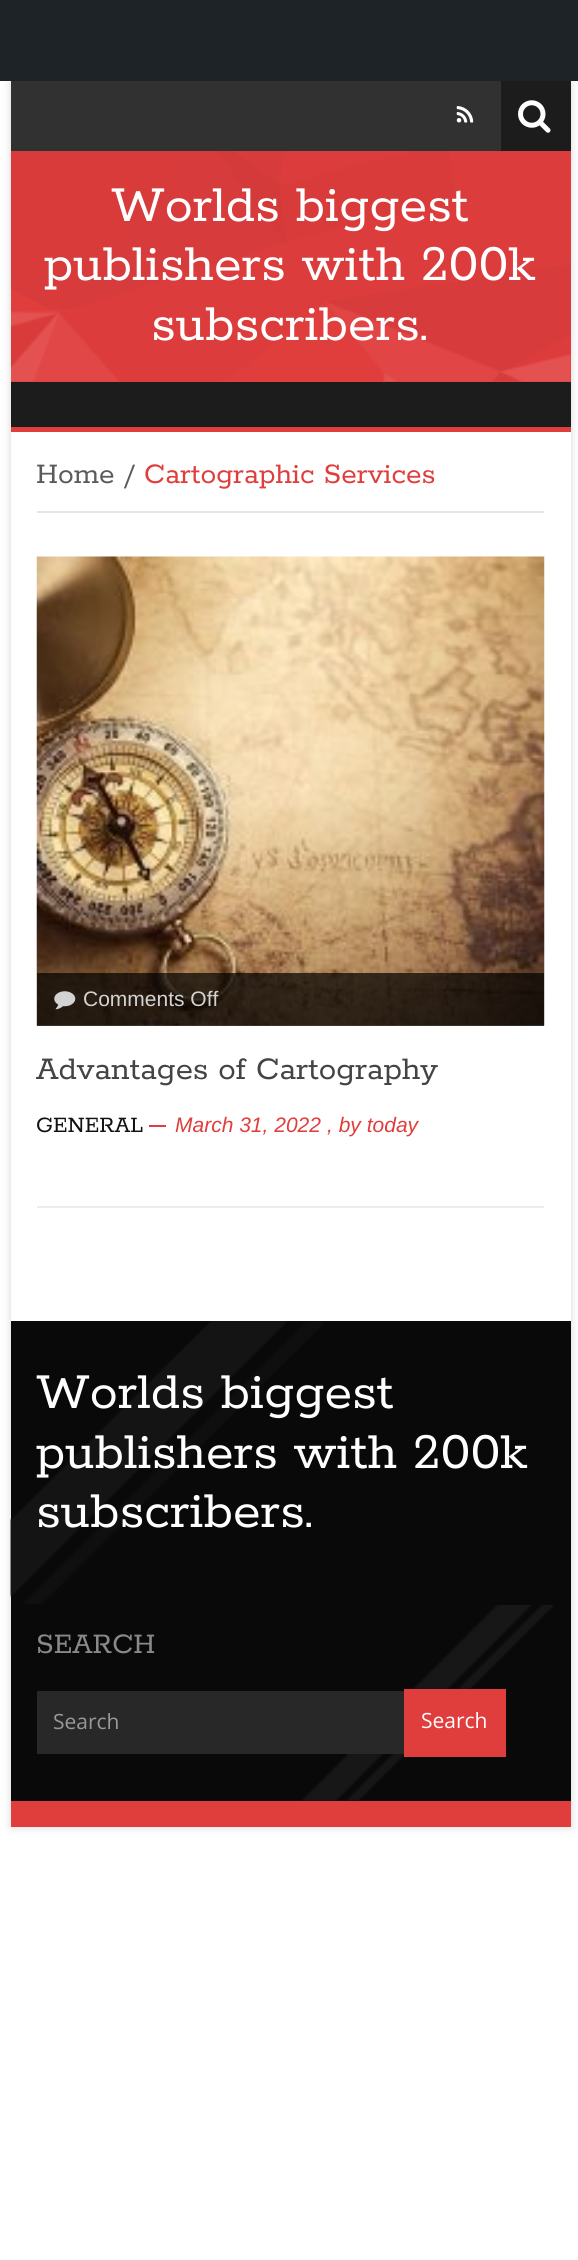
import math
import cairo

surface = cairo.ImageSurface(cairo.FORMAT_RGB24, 578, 2260)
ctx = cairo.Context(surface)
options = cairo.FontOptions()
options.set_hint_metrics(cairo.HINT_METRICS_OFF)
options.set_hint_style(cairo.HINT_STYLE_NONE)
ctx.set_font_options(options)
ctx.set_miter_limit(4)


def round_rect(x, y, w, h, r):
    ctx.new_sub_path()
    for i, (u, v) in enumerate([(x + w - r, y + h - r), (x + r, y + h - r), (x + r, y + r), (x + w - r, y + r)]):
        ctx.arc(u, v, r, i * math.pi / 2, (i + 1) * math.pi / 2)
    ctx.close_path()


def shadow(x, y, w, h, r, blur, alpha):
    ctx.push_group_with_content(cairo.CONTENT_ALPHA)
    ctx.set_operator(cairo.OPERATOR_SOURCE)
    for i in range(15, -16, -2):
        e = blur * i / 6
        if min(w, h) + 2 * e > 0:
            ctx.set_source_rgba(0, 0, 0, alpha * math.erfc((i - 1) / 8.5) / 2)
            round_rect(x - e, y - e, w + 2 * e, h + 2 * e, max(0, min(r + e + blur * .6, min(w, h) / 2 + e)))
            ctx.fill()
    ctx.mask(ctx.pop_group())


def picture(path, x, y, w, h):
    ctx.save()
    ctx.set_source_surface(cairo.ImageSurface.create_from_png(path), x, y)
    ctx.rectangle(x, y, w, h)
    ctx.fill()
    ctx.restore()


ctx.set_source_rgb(1, 1, 1)
ctx.paint()
ctx.set_source_rgb(0.792, 0.792, 0.792)
shadow(11, 81, 560, 1746, 0, 4.5, 0.75)
ctx.set_source_rgb(0.114, 0.137, 0.153)
ctx.rectangle(0, 0, 578, 81)
ctx.fill()
ctx.set_source_rgb(0.192, 0.192, 0.192)
ctx.rectangle(11, 81, 490, 70)
ctx.fill()
picture("img1.png", 456, 106, 18, 17)
ctx.set_source_rgb(0.11, 0.11, 0.11)
ctx.rectangle(501, 81, 70, 70)
ctx.fill()
picture("img2.png", 518, 100, 33, 33)
ctx.set_source_rgb(0.878, 0.239, 0.239)
ctx.rectangle(11, 151, 560, 231)
ctx.fill()
picture("img3.png", 10, 151, 561, 231)
ctx.select_font_face("Rokkitt SemiBold")
ctx.set_font_size(56)
ctx.set_source_rgb(1, 1, 1)
ctx.move_to(111, 221)
ctx.show_text("Worlds biggest")
ctx.move_to(44, 280)
ctx.show_text("publishers with 200k")
ctx.move_to(151, 340)
ctx.show_text("subscribers.")
ctx.set_source_rgb(0.11, 0.11, 0.11)
ctx.rectangle(11, 382, 560, 45)
ctx.fill()
ctx.set_source_rgb(0.878, 0.239, 0.239)
ctx.rectangle(11, 427, 560, 5)
ctx.fill()
ctx.set_source_rgb(1, 1, 1)
ctx.rectangle(11, 432, 560, 889)
ctx.fill()
ctx.set_source_rgb(0.898, 0.898, 0.898)
ctx.rectangle(37, 511, 507, 2)
ctx.fill()
ctx.set_font_size(31.5)
ctx.set_source_rgb(0.357, 0.357, 0.357)
ctx.move_to(36, 483)
ctx.show_text("Home /")
ctx.set_source_rgb(0.878, 0.239, 0.239)
ctx.move_to(144, 483)
ctx.show_text("Cartographic Services")
ctx.set_source_rgb(0.922, 0.922, 0.922)
ctx.rectangle(37, 1206, 507, 2)
ctx.fill()
picture("img4.png", 36, 556, 509, 470)
ctx.set_source_rgba(0, 0, 0, 0.7)
ctx.rectangle(37, 973, 507, 53)
ctx.fill()
picture("img5.png", 54, 991, 22, 19)
ctx.select_font_face("Liberation Sans")
ctx.set_font_size(21)
ctx.set_source_rgb(0.827, 0.827, 0.827)
ctx.move_to(83, 1006)
ctx.show_text("Comments Off")
ctx.select_font_face("Rokkitt SemiBold")
ctx.set_font_size(35)
ctx.set_source_rgb(0.267, 0.267, 0.267)
ctx.move_to(36, 1079)
ctx.show_text("Advantages of Cartography")
ctx.set_font_size(24.5)
ctx.set_source_rgb(0.071, 0.071, 0.071)
ctx.move_to(36, 1132)
ctx.show_text("GENERAL")
ctx.set_source_rgb(0.878, 0.239, 0.239)
ctx.rectangle(149, 1125, 17, 2)
ctx.fill()
ctx.select_font_face("Liberation Sans", cairo.FONT_SLANT_ITALIC)
ctx.set_font_size(21)
ctx.move_to(175, 1132)
ctx.show_text("March 31, 2022")
ctx.move_to(327, 1132)
ctx.show_text(", by today")
ctx.set_source_rgb(0.039, 0.039, 0.039)
ctx.rectangle(11, 1321, 560, 480)
ctx.fill()
picture("img6.png", 10, 1321, 314, 283)
ctx.select_font_face("Rokkitt SemiBold")
ctx.set_font_size(56)
ctx.set_source_rgb(1, 1, 1)
ctx.move_to(36, 1408)
ctx.show_text("Worlds biggest")
ctx.move_to(36, 1468)
ctx.show_text("publishers with 200k")
ctx.move_to(36, 1527)
ctx.show_text("subscribers.")
picture("img7.png", 302, 1605, 252, 196)
ctx.set_font_size(31.5)
ctx.set_source_rgb(0.537, 0.537, 0.537)
ctx.move_to(36, 1653)
ctx.show_text("SEARCH")
ctx.set_source_rgb(0.157, 0.157, 0.157)
ctx.rectangle(37, 1691, 367, 63)
ctx.fill()
ctx.select_font_face("Open Sans")
ctx.set_font_size(21)
ctx.set_source_rgb(0.6, 0.6, 0.6)
ctx.move_to(53, 1729)
ctx.show_text("Search")
ctx.set_source_rgb(0.878, 0.239, 0.239)
ctx.rectangle(404, 1689, 102, 68)
ctx.fill()
ctx.set_source_rgb(1, 1, 1)
ctx.move_to(421, 1728)
ctx.show_text("Search")
ctx.set_source_rgb(0.878, 0.239, 0.239)
ctx.rectangle(11, 1801, 560, 26)
ctx.fill()
surface.write_to_png("page.png")
